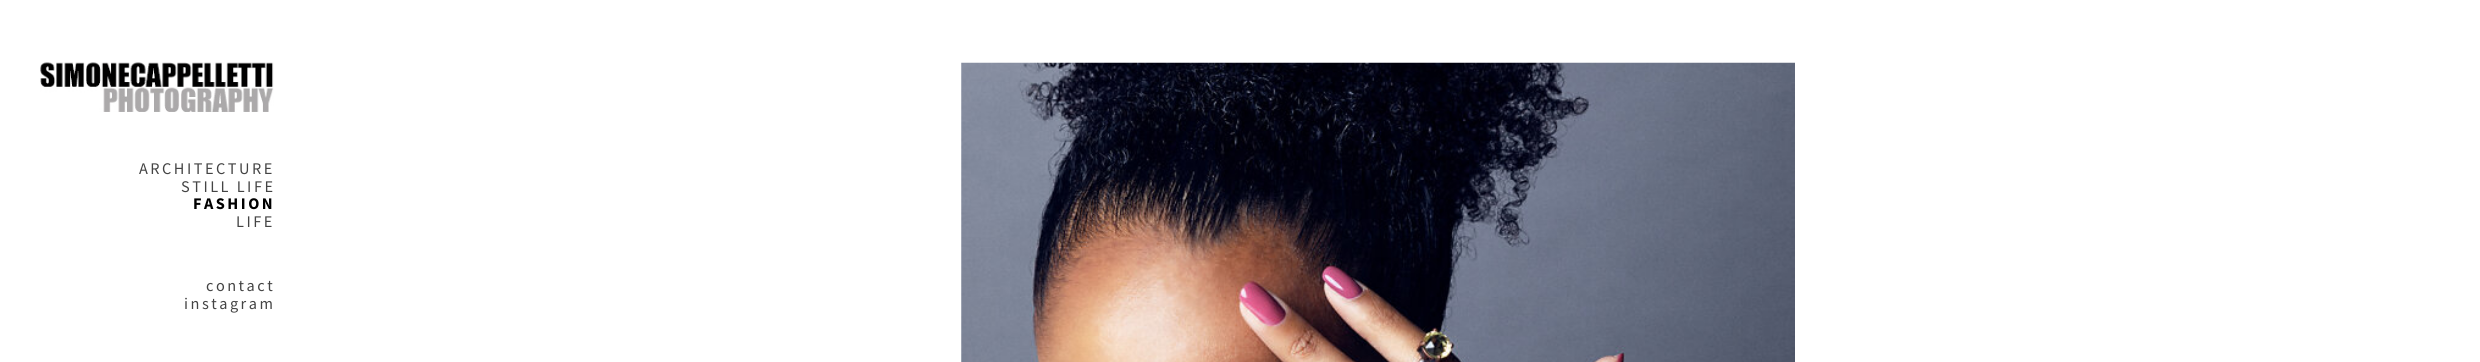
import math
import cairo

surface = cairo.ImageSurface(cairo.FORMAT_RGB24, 2480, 362)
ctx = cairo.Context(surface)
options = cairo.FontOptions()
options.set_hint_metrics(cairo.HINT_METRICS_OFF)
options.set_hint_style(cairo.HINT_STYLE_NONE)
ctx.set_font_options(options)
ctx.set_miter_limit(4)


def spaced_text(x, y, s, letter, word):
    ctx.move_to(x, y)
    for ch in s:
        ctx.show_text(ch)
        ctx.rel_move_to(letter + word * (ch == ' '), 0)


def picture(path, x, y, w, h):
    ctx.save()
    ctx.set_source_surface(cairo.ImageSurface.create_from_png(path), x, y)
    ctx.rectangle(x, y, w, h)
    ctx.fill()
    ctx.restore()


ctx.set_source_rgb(1, 1, 1)
ctx.paint()
picture("img1.png", 40, 62, 234, 50)
ctx.select_font_face("Source Sans Pro")
ctx.set_font_size(16.25)
ctx.set_source_rgb(0.267, 0.267, 0.267)
spaced_text(139, 174, "ARCHITECTURE", 2.5, 0)
spaced_text(181, 192, "STILL LIFE", 2.5, 0)
ctx.select_font_face("Source Sans Pro", cairo.FONT_SLANT_NORMAL, cairo.FONT_WEIGHT_BOLD)
ctx.set_source_rgb(0, 0, 0)
spaced_text(193, 209, "FASHION", 2.5, 0)
ctx.select_font_face("Source Sans Pro")
ctx.set_source_rgb(0.267, 0.267, 0.267)
spaced_text(236, 227, "LIFE", 2.5, 0)
spaced_text(206, 291, "contact", 2.5, 0)
spaced_text(184, 309, "instagram", 2.5, 0)
picture("img2.png", 961, 62, 834, 300)
surface.write_to_png("page.png")
